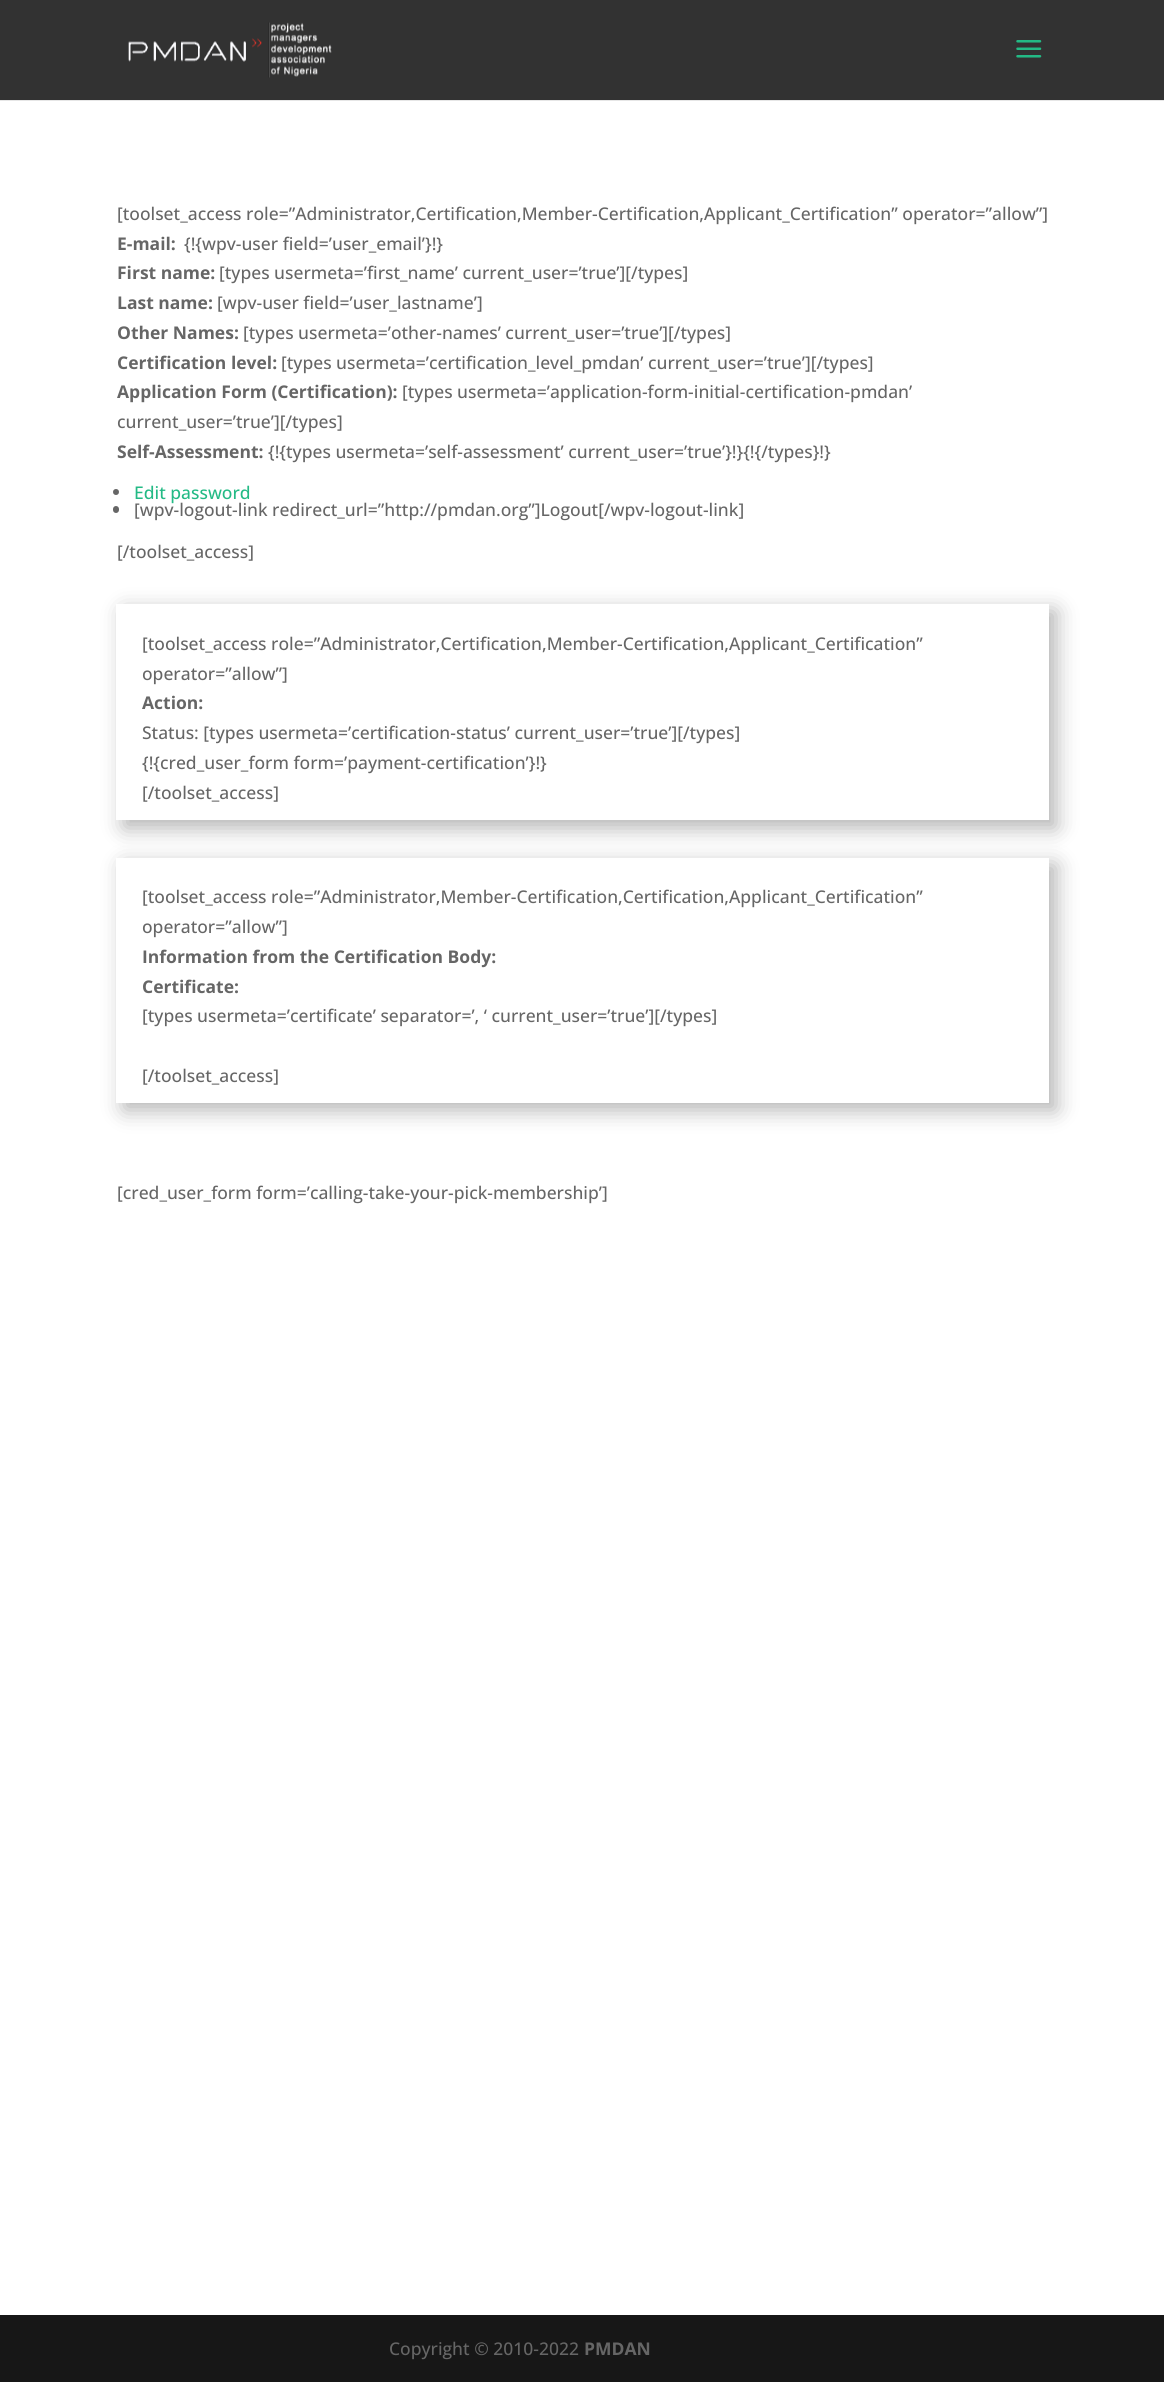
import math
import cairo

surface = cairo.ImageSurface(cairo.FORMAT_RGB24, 1164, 2382)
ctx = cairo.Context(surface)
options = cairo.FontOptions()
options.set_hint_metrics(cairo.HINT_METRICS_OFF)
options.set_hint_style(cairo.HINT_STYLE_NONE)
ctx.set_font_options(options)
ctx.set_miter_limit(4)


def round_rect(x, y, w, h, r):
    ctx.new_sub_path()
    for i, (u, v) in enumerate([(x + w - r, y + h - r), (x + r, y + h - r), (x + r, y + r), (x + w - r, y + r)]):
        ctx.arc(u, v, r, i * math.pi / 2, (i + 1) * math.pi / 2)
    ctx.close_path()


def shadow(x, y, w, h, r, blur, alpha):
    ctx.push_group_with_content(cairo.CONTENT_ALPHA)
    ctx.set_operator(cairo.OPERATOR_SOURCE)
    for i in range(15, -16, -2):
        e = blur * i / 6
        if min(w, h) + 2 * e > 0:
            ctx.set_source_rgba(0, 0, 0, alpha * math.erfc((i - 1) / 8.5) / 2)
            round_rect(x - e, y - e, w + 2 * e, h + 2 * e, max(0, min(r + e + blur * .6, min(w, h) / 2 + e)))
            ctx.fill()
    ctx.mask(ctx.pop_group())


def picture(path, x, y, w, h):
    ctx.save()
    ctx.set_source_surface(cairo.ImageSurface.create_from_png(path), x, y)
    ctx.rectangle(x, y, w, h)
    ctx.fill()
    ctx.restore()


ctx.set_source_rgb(1, 1, 1)
ctx.paint()
ctx.set_source_rgb(0.902, 0.902, 0.902)
ctx.rectangle(0, 100, 1164, 1)
ctx.fill()
ctx.set_source_rgb(0.196, 0.196, 0.196)
ctx.rectangle(0, 0, 1164, 100)
ctx.fill()
picture("img1.png", 128, 22, 204, 56)
picture("img2.png", 1016, 40, 26, 18)
ctx.select_font_face("Open Sans Medium")
ctx.set_font_size(17.5)
ctx.set_source_rgb(0.4, 0.4, 0.4)
ctx.move_to(117, 220)
ctx.show_text("[toolset_access role=”Administrator,Certification,Member-Certification,Applicant_Certification” operator=”allow”]")
ctx.select_font_face("Open Sans", cairo.FONT_SLANT_NORMAL, cairo.FONT_WEIGHT_BOLD)
ctx.move_to(117, 250)
ctx.show_text("E-mail:")
ctx.select_font_face("Open Sans Medium")
ctx.move_to(184, 250)
ctx.show_text("{!{wpv-user field=’user_email’}!}")
ctx.select_font_face("Open Sans", cairo.FONT_SLANT_NORMAL, cairo.FONT_WEIGHT_BOLD)
ctx.move_to(117, 279)
ctx.show_text("First name:")
ctx.select_font_face("Open Sans Medium")
ctx.move_to(219, 279)
ctx.show_text("[types usermeta=’first_name’ current_user=’true’][/types]")
ctx.select_font_face("Open Sans", cairo.FONT_SLANT_NORMAL, cairo.FONT_WEIGHT_BOLD)
ctx.move_to(117, 309)
ctx.show_text("Last name:")
ctx.select_font_face("Open Sans Medium")
ctx.move_to(217, 309)
ctx.show_text("[wpv-user field=’user_lastname’]")
ctx.select_font_face("Open Sans", cairo.FONT_SLANT_NORMAL, cairo.FONT_WEIGHT_BOLD)
ctx.move_to(117, 339)
ctx.show_text("Other Names:")
ctx.select_font_face("Open Sans Medium")
ctx.move_to(243, 339)
ctx.show_text("[types usermeta=’other-names’ current_user=’true’][/types]")
ctx.select_font_face("Open Sans", cairo.FONT_SLANT_NORMAL, cairo.FONT_WEIGHT_BOLD)
ctx.move_to(117, 369)
ctx.show_text("Certification level:")
ctx.select_font_face("Open Sans Medium")
ctx.move_to(281, 369)
ctx.show_text("[types usermeta=’certification_level_pmdan’ current_user=’true’][/types]")
ctx.select_font_face("Open Sans", cairo.FONT_SLANT_NORMAL, cairo.FONT_WEIGHT_BOLD)
ctx.move_to(117, 398)
ctx.show_text("Application Form (Certification):")
ctx.select_font_face("Open Sans Medium")
ctx.move_to(402, 398)
ctx.show_text("[types usermeta=’application-form-initial-certification-pmdan’")
ctx.move_to(117, 428)
ctx.show_text("current_user=’true’][/types]")
ctx.select_font_face("Open Sans", cairo.FONT_SLANT_NORMAL, cairo.FONT_WEIGHT_BOLD)
ctx.move_to(117, 458)
ctx.show_text("Self-Assessment:")
ctx.select_font_face("Open Sans Medium")
ctx.move_to(268, 458)
ctx.show_text("{!{types usermeta=’self-assessment’ current_user=’true’}!}{!{/types}!}")
ctx.new_path()
ctx.arc(116, 492, 3, 0, 2 * math.pi)
ctx.fill()
ctx.set_source_rgb(0.137, 0.729, 0.522)
ctx.move_to(134, 499)
ctx.show_text("Edit password")
ctx.set_source_rgb(0.4, 0.4, 0.4)
round_rect(113, 506, 6, 7, 3)
ctx.fill()
ctx.move_to(134, 516)
ctx.show_text("[wpv-logout-link redirect_url=”http://pmdan.org”]Logout[/wpv-logout-link]")
ctx.move_to(117, 558)
ctx.show_text("[/toolset_access]")
ctx.save()
ctx.set_fill_rule(cairo.FILL_RULE_EVEN_ODD)
ctx.new_path()
ctx.move_to(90, 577)
ctx.line_to(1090, 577)
ctx.line_to(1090, 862)
ctx.line_to(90, 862)
ctx.close_path()
ctx.move_to(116, 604)
ctx.line_to(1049, 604)
ctx.line_to(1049, 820)
ctx.line_to(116, 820)
ctx.close_path()
ctx.clip()
ctx.set_source_rgb(0, 0, 0)
shadow(124, 611, 932, 217, 0, 11, 0.3)
ctx.restore()
ctx.move_to(142, 650)
ctx.show_text("[toolset_access role=”Administrator,Certification,Member-Certification,Applicant_Certification”")
ctx.move_to(142, 680)
ctx.show_text("operator=”allow”]")
ctx.select_font_face("Open Sans", cairo.FONT_SLANT_NORMAL, cairo.FONT_WEIGHT_BOLD)
ctx.move_to(142, 709)
ctx.show_text("Action:")
ctx.select_font_face("Open Sans Medium")
ctx.move_to(142, 739)
ctx.show_text("Status: [types usermeta=’certification-status’ current_user=’true’][/types]")
ctx.move_to(142, 769)
ctx.show_text("{!{cred_user_form form=’payment-certification’}!}")
ctx.move_to(142, 799)
ctx.show_text("[/toolset_access]")
ctx.save()
ctx.set_fill_rule(cairo.FILL_RULE_EVEN_ODD)
ctx.new_path()
ctx.move_to(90, 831)
ctx.line_to(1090, 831)
ctx.line_to(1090, 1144)
ctx.line_to(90, 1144)
ctx.close_path()
ctx.move_to(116, 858)
ctx.line_to(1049, 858)
ctx.line_to(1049, 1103)
ctx.line_to(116, 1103)
ctx.close_path()
ctx.clip()
ctx.set_source_rgb(0, 0, 0)
shadow(124, 865, 932, 245, 0, 11, 0.3)
ctx.restore()
ctx.move_to(142, 903)
ctx.show_text("[toolset_access role=”Administrator,Member-Certification,Certification,Applicant_Certification”")
ctx.move_to(142, 933)
ctx.show_text("operator=”allow”]")
ctx.select_font_face("Open Sans", cairo.FONT_SLANT_NORMAL, cairo.FONT_WEIGHT_BOLD)
ctx.move_to(142, 963)
ctx.show_text("Information from the Certification Body:")
ctx.move_to(142, 993)
ctx.show_text("Certificate:")
ctx.select_font_face("Open Sans Medium")
ctx.move_to(142, 1022)
ctx.show_text("[types usermeta=’certificate’ separator=’, ‘ current_user=’true’][/types]")
ctx.move_to(142, 1082)
ctx.show_text("[/toolset_access]")
ctx.move_to(117, 1199)
ctx.show_text("[cred_user_form form=’calling-take-your-pick-membership’]")
ctx.set_source_rgb(0.09, 0.09, 0.09)
ctx.rectangle(0, 2315, 1164, 67)
ctx.fill()
ctx.set_source_rgb(0.4, 0.4, 0.4)
ctx.move_to(389, 2355)
ctx.show_text("Copyright © 2010-2022")
ctx.select_font_face("Open Sans", cairo.FONT_SLANT_NORMAL, cairo.FONT_WEIGHT_BOLD)
ctx.move_to(584, 2355)
ctx.show_text("PMDAN")
surface.write_to_png("page.png")
